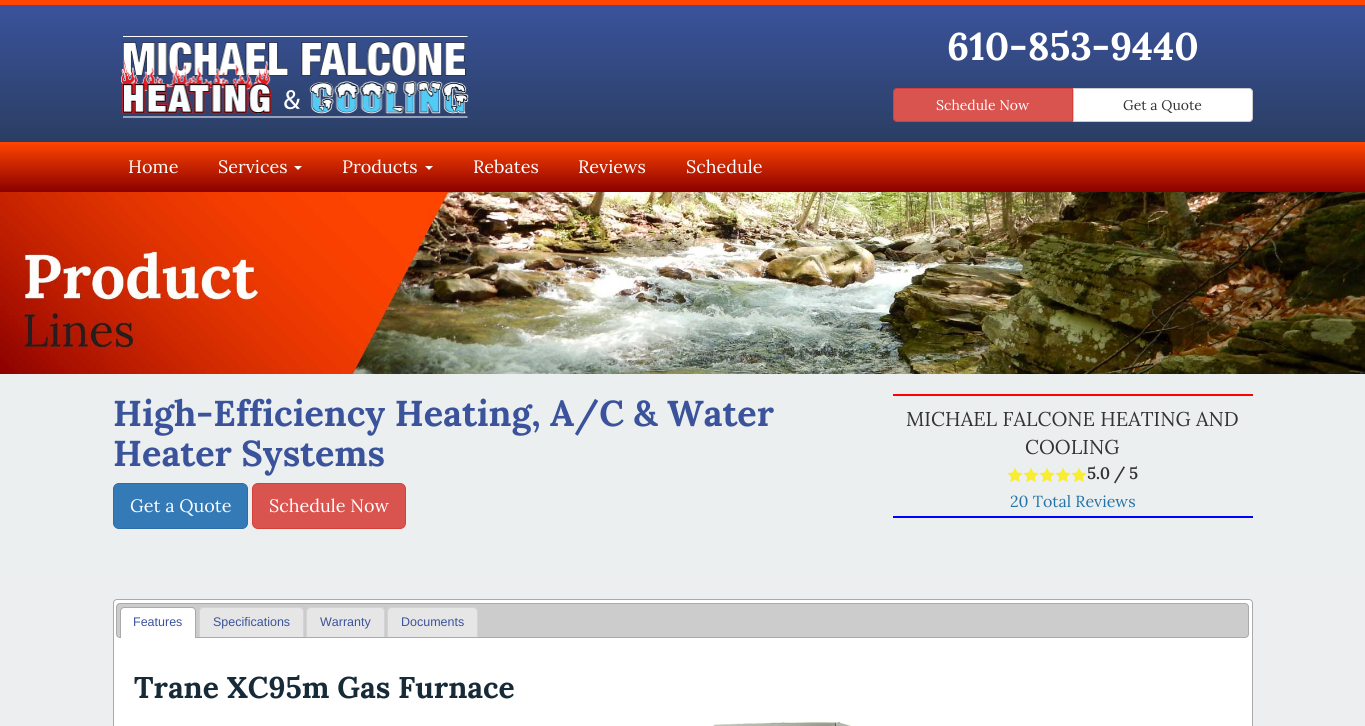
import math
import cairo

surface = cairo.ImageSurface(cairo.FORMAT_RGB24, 1365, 726)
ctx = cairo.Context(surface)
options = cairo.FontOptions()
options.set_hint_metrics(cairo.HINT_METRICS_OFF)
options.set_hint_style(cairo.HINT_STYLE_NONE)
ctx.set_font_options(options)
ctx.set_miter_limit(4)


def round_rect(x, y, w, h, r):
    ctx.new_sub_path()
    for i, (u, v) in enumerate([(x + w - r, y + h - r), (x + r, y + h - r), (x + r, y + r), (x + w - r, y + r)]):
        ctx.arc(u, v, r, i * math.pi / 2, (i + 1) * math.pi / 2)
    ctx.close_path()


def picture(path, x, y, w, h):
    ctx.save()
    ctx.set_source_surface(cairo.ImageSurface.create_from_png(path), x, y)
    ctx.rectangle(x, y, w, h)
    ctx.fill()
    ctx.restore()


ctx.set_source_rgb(1, 1, 1)
ctx.paint()
gradient = cairo.LinearGradient(683, 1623, 683, 0)
gradient.add_color_stop_rgba(0, 0.925, 0.925, 0.925, 1)
gradient.add_color_stop_rgba(1, 0.925, 0.941, 0.945, 1)
ctx.set_source(gradient)
ctx.rectangle(0, 374, 1365, 352)
ctx.fill()
gradient = cairo.LinearGradient(683, 5, 683, 142)
gradient.add_color_stop_rgba(0, 0.227, 0.325, 0.608, 1)
gradient.add_color_stop_rgba(1, 0.165, 0.243, 0.388, 1)
ctx.set_source(gradient)
ctx.rectangle(0, 5, 1365, 137)
ctx.fill()
ctx.set_source_rgb(1, 0.271, 0)
ctx.rectangle(0, 0, 1365, 5)
ctx.fill()
picture("img1.png", 118, 36, 351, 82)
ctx.select_font_face("Lora", cairo.FONT_SLANT_NORMAL, cairo.FONT_WEIGHT_BOLD)
ctx.set_font_size(38.5)
ctx.set_source_rgb(1, 1, 1)
ctx.move_to(947, 60)
ctx.show_text("610-853-9440")
ctx.set_source_rgb(0.851, 0.325, 0.31)
ctx.new_path()
ctx.move_to(897, 88.5)
ctx.line_to(1072.5, 88.5)
ctx.line_to(1072.5, 121.5)
ctx.line_to(897, 121.5)
ctx.curve_to(895, 121.5, 893.5, 120, 893.5, 118)
ctx.line_to(893.5, 92)
ctx.curve_to(893.5, 90, 895, 88.5, 897, 88.5)
ctx.close_path()
ctx.fill_preserve()
ctx.set_source_rgb(0.831, 0.247, 0.227)
ctx.set_line_width(1)
ctx.stroke()
ctx.select_font_face("Lora")
ctx.set_font_size(14)
ctx.set_source_rgb(1, 1, 1)
ctx.move_to(936, 110)
ctx.show_text("Schedule Now")
ctx.new_path()
ctx.move_to(1073.5, 88.5)
ctx.line_to(1249, 88.5)
ctx.curve_to(1251, 88.5, 1252.5, 90, 1252.5, 92)
ctx.line_to(1252.5, 118)
ctx.curve_to(1252.5, 120, 1251, 121.5, 1249, 121.5)
ctx.line_to(1073.5, 121.5)
ctx.close_path()
ctx.fill_preserve()
ctx.set_source_rgb(0.8, 0.8, 0.8)
ctx.stroke()
ctx.set_source_rgb(0.2, 0.2, 0.2)
ctx.move_to(1123, 110)
ctx.show_text("Get a Quote")
gradient = cairo.LinearGradient(683, 142, 683, 192)
gradient.add_color_stop_rgba(0, 1, 0.271, 0, 1)
gradient.add_color_stop_rgba(1, 0.545, 0, 0, 1)
ctx.set_source(gradient)
ctx.rectangle(0, 142, 1365, 50)
ctx.fill()
ctx.set_font_size(18)
ctx.set_source_rgb(1, 1, 1)
ctx.move_to(128, 173)
ctx.show_text("Home")
ctx.move_to(218, 173)
ctx.show_text("Services")
ctx.new_path()
ctx.move_to(294, 166)
ctx.line_to(302, 166)
ctx.line_to(298, 170)
ctx.close_path()
ctx.fill()
ctx.move_to(342, 173)
ctx.show_text("Products")
ctx.new_path()
ctx.move_to(425, 166)
ctx.line_to(433, 166)
ctx.line_to(429, 170)
ctx.close_path()
ctx.fill()
ctx.move_to(473, 173)
ctx.show_text("Rebates")
ctx.move_to(578, 173)
ctx.show_text("Reviews")
ctx.move_to(686, 173)
ctx.show_text("Schedule")
picture("img2.png", 0, 192, 1365, 182)
ctx.select_font_face("Lora", cairo.FONT_SLANT_NORMAL, cairo.FONT_WEIGHT_BOLD)
ctx.set_font_size(36)
ctx.set_source_rgb(0.227, 0.325, 0.608)
ctx.move_to(113, 426)
ctx.show_text("High-Efficiency Heating, A/C & Water")
ctx.move_to(113, 466)
ctx.show_text("Heater Systems")
ctx.set_source_rgb(0.2, 0.478, 0.718)
round_rect(113.5, 483.5, 134, 45, 5.5)
ctx.fill_preserve()
ctx.set_source_rgb(0.18, 0.427, 0.643)
ctx.stroke()
ctx.select_font_face("Lora")
ctx.set_font_size(18)
ctx.set_source_rgb(1, 1, 1)
ctx.move_to(130, 512)
ctx.show_text("Get a Quote")
ctx.set_source_rgb(0.851, 0.325, 0.31)
round_rect(252.5, 483.5, 153, 45, 5.5)
ctx.fill_preserve()
ctx.set_source_rgb(0.831, 0.247, 0.227)
ctx.stroke()
ctx.set_source_rgb(1, 1, 1)
ctx.move_to(269, 512)
ctx.show_text("Schedule Now")
ctx.set_source_rgb(1, 0, 0)
ctx.rectangle(893, 394, 360, 2)
ctx.fill()
ctx.set_source_rgb(0, 0, 1)
ctx.rectangle(893, 516, 360, 2)
ctx.fill()
ctx.set_font_size(20)
ctx.set_source_rgb(0.2, 0.2, 0.2)
ctx.move_to(906, 426)
ctx.show_text("MICHAEL FALCONE HEATING AND")
ctx.move_to(1025, 454)
ctx.show_text("COOLING")
picture("img3.png", 1007, 467, 16, 16)
picture("img3.png", 1023, 467, 16, 16)
picture("img3.png", 1039, 467, 16, 16)
picture("img3.png", 1055, 467, 16, 16)
picture("img3.png", 1071, 467, 16, 16)
ctx.select_font_face("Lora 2", cairo.FONT_SLANT_NORMAL, cairo.FONT_WEIGHT_BOLD)
ctx.set_font_size(16)
ctx.move_to(1087, 479)
ctx.show_text("5.0 / 5")
ctx.select_font_face("Lora")
ctx.set_source_rgb(0.145, 0.455, 0.663)
ctx.move_to(1010, 507)
ctx.show_text("20 Total Reviews")
ctx.set_source_rgb(1, 1, 1)
round_rect(113.5, 599.5, 1139, 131, 3.5)
ctx.fill_preserve()
ctx.set_source_rgb(0.667, 0.667, 0.667)
ctx.stroke()
ctx.set_source_rgb(0.8, 0.8, 0.8)
round_rect(116.5, 603.5, 1132, 34, 3.5)
ctx.fill_preserve()
ctx.set_source_rgb(0.667, 0.667, 0.667)
ctx.stroke()
ctx.set_source_rgb(1, 1, 1)
ctx.new_path()
ctx.move_to(124, 608)
ctx.line_to(192, 608)
ctx.curve_to(193.5, 608, 195, 609.5, 195, 611)
ctx.line_to(195, 638)
ctx.line_to(121, 638)
ctx.line_to(121, 611)
ctx.curve_to(121, 609.5, 122.5, 608, 124, 608)
ctx.close_path()
ctx.fill()
ctx.set_source_rgb(0.667, 0.667, 0.667)
ctx.set_fill_rule(cairo.FILL_RULE_EVEN_ODD)
ctx.new_path()
ctx.move_to(124, 607)
ctx.line_to(192, 607)
ctx.curve_to(194, 607, 196, 609, 196, 611)
ctx.line_to(196, 638)
ctx.line_to(120, 638)
ctx.line_to(120, 611)
ctx.curve_to(120, 609, 122, 607, 124, 607)
ctx.close_path()
ctx.move_to(124, 608)
ctx.line_to(192, 608)
ctx.curve_to(194, 608, 195, 609, 195, 611)
ctx.line_to(195, 638)
ctx.line_to(121, 638)
ctx.line_to(121, 611)
ctx.curve_to(121, 609, 122, 608, 124, 608)
ctx.close_path()
ctx.fill()
ctx.select_font_face("Liberation Sans")
ctx.set_font_size(12.5)
ctx.set_source_rgb(0.227, 0.325, 0.608)
ctx.move_to(133, 626)
ctx.show_text("Features")
ctx.set_source_rgb(0.902, 0.902, 0.902)
ctx.new_path()
ctx.move_to(203, 608)
ctx.line_to(300, 608)
ctx.curve_to(301.5, 608, 303, 609.5, 303, 611)
ctx.line_to(303, 637)
ctx.line_to(200, 637)
ctx.line_to(200, 611)
ctx.curve_to(200, 609.5, 201.5, 608, 203, 608)
ctx.close_path()
ctx.fill()
ctx.set_source_rgb(0.827, 0.827, 0.827)
ctx.new_path()
ctx.move_to(203, 607)
ctx.line_to(300, 607)
ctx.curve_to(302, 607, 304, 609, 304, 611)
ctx.line_to(304, 637)
ctx.line_to(199, 637)
ctx.line_to(199, 611)
ctx.curve_to(199, 609, 201, 607, 203, 607)
ctx.close_path()
ctx.move_to(203, 608)
ctx.line_to(300, 608)
ctx.curve_to(302, 608, 303, 609, 303, 611)
ctx.line_to(303, 637)
ctx.line_to(200, 637)
ctx.line_to(200, 611)
ctx.curve_to(200, 609, 201, 608, 203, 608)
ctx.close_path()
ctx.fill()
ctx.set_source_rgb(0.227, 0.325, 0.608)
ctx.move_to(213, 626)
ctx.show_text("Specifications")
ctx.set_source_rgb(0.902, 0.902, 0.902)
ctx.new_path()
ctx.move_to(310, 608)
ctx.line_to(381, 608)
ctx.curve_to(382.5, 608, 384, 609.5, 384, 611)
ctx.line_to(384, 637)
ctx.line_to(307, 637)
ctx.line_to(307, 611)
ctx.curve_to(307, 609.5, 308.5, 608, 310, 608)
ctx.close_path()
ctx.fill()
ctx.set_source_rgb(0.827, 0.827, 0.827)
ctx.new_path()
ctx.move_to(310, 607)
ctx.line_to(381, 607)
ctx.curve_to(383, 607, 385, 609, 385, 611)
ctx.line_to(385, 637)
ctx.line_to(306, 637)
ctx.line_to(306, 611)
ctx.curve_to(306, 609, 308, 607, 310, 607)
ctx.close_path()
ctx.move_to(310, 608)
ctx.line_to(381, 608)
ctx.curve_to(383, 608, 384, 609, 384, 611)
ctx.line_to(384, 637)
ctx.line_to(307, 637)
ctx.line_to(307, 611)
ctx.curve_to(307, 609, 308, 608, 310, 608)
ctx.close_path()
ctx.fill()
ctx.set_source_rgb(0.227, 0.325, 0.608)
ctx.move_to(320, 626)
ctx.show_text("Warranty")
ctx.set_source_rgb(0.902, 0.902, 0.902)
ctx.new_path()
ctx.move_to(391, 608)
ctx.line_to(474, 608)
ctx.curve_to(475.5, 608, 477, 609.5, 477, 611)
ctx.line_to(477, 637)
ctx.line_to(388, 637)
ctx.line_to(388, 611)
ctx.curve_to(388, 609.5, 389.5, 608, 391, 608)
ctx.close_path()
ctx.fill()
ctx.set_source_rgb(0.827, 0.827, 0.827)
ctx.new_path()
ctx.move_to(391, 607)
ctx.line_to(474, 607)
ctx.curve_to(476, 607, 478, 609, 478, 611)
ctx.line_to(478, 637)
ctx.line_to(387, 637)
ctx.line_to(387, 611)
ctx.curve_to(387, 609, 389, 607, 391, 607)
ctx.close_path()
ctx.move_to(391, 608)
ctx.line_to(474, 608)
ctx.curve_to(476, 608, 477, 609, 477, 611)
ctx.line_to(477, 637)
ctx.line_to(388, 637)
ctx.line_to(388, 611)
ctx.curve_to(388, 609, 389, 608, 391, 608)
ctx.close_path()
ctx.fill()
ctx.set_source_rgb(0.227, 0.325, 0.608)
ctx.move_to(401, 626)
ctx.show_text("Documents")
ctx.select_font_face("Lora", cairo.FONT_SLANT_NORMAL, cairo.FONT_WEIGHT_BOLD)
ctx.set_font_size(30)
ctx.set_source_rgb(0.086, 0.165, 0.22)
ctx.move_to(134, 698)
ctx.show_text("Trane XC95m Gas Furnace")
picture("img4.png", 713, 722, 138, 4)
surface.write_to_png("page.png")
